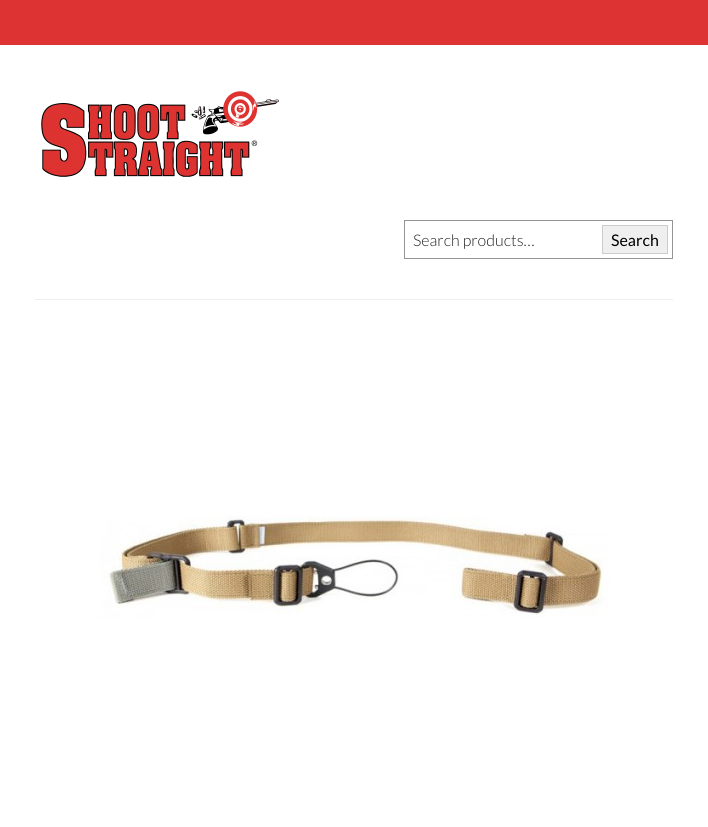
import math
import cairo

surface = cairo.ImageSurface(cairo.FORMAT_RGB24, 708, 827)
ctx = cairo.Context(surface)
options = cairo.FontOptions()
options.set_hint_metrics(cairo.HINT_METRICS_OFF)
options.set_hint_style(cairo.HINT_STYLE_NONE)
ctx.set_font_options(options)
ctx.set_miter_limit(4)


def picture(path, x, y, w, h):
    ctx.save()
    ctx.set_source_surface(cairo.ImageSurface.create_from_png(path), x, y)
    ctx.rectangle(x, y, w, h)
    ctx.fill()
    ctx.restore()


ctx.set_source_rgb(1, 1, 1)
ctx.paint()
ctx.set_source_rgb(0.867, 0.2, 0.2)
ctx.rectangle(0, 0, 708, 45)
ctx.fill()
ctx.set_source_rgb(0.933, 0.933, 0.933)
ctx.rectangle(35, 299, 638, 1)
ctx.fill()
picture("img1.png", 41, 91, 238, 86)
ctx.rectangle(404.5, 220.5, 268, 38)
ctx.set_source_rgb(0.58, 0.58, 0.58)
ctx.set_line_width(1)
ctx.stroke()
ctx.select_font_face("Lato Light")
ctx.set_font_size(16)
ctx.set_source_rgb(0.133, 0.133, 0.133)
ctx.move_to(413, 246)
ctx.show_text("Search products…")
ctx.set_source_rgb(0.937, 0.937, 0.937)
ctx.rectangle(602.5, 225.5, 65, 28)
ctx.fill_preserve()
ctx.set_source_rgb(0.8, 0.8, 0.8)
ctx.stroke()
ctx.select_font_face("Lato")
ctx.set_source_rgb(0, 0, 0)
ctx.move_to(611, 246)
ctx.show_text("Search")
picture("img2.png", 99, 516, 510, 103)
surface.write_to_png("page.png")
